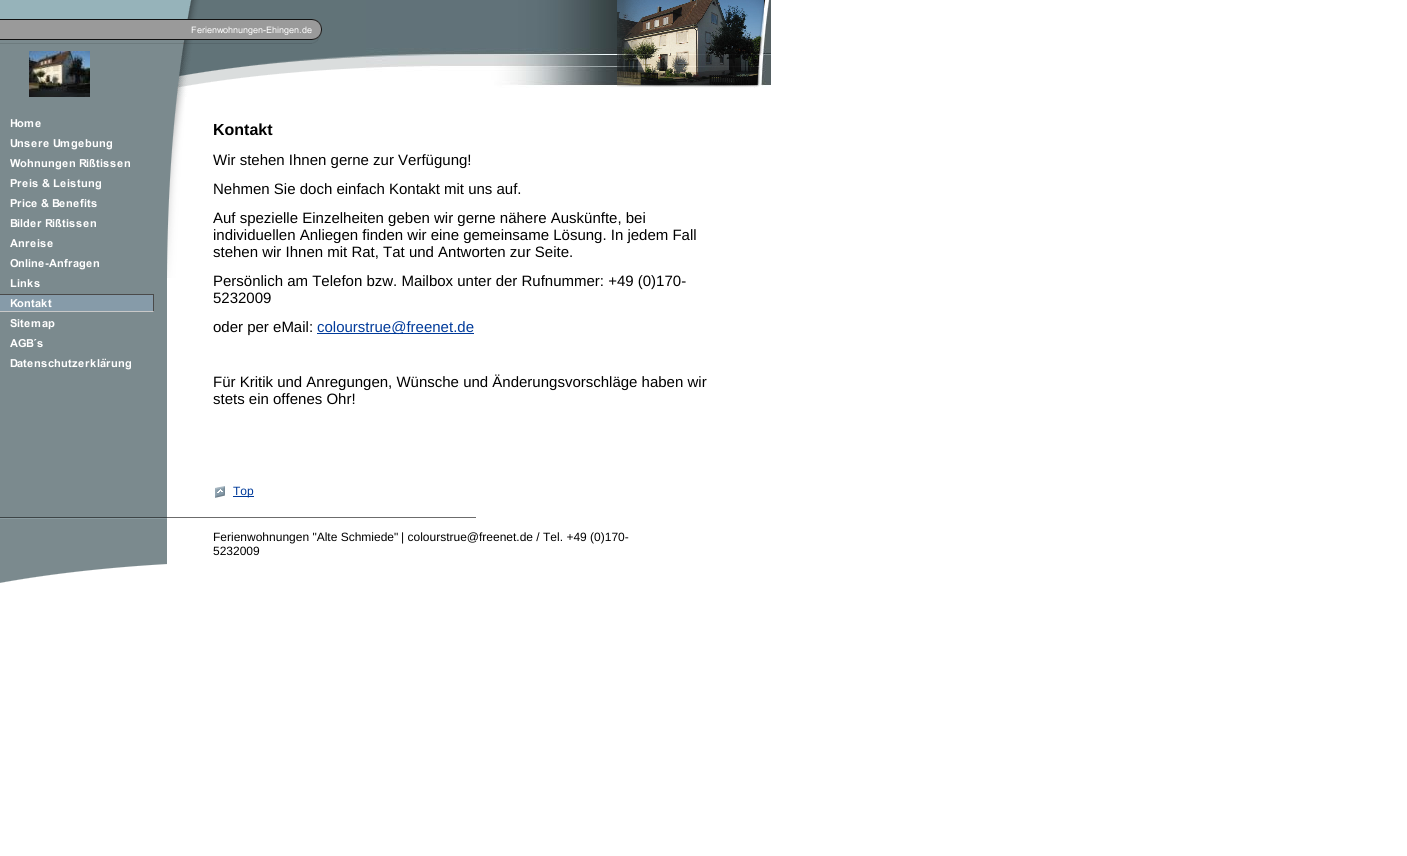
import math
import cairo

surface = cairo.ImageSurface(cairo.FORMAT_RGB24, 1407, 856)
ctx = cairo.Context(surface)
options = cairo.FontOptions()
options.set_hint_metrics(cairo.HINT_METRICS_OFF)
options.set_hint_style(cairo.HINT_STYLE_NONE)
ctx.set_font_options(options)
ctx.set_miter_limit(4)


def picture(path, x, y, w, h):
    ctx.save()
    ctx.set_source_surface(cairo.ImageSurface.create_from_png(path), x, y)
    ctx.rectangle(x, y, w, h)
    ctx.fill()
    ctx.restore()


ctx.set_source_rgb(1, 1, 1)
ctx.paint()
picture("img1.png", 770, 0, 1, 85)
picture("img2.png", 0, 0, 366, 51)
picture("img3.png", 191, 26, 121, 9)
picture("img4.png", 366, 0, 404, 88)
ctx.set_source_rgb(0.482, 0.541, 0.557)
ctx.rectangle(0, 51, 149, 46)
ctx.fill()
picture("img5.png", 29, 51, 61, 46)
picture("img6.png", 149, 51, 217, 46)
ctx.rectangle(0, 97, 167, 420)
ctx.fill()
picture("img7.png", 10, 119, 31, 9)
picture("img8.png", 10, 139, 102, 11)
picture("img9.png", 10, 159, 120, 11)
picture("img10.png", 10, 179, 91, 11)
picture("img11.png", 10, 199, 87, 9)
picture("img12.png", 10, 219, 86, 9)
picture("img13.png", 10, 239, 43, 9)
picture("img14.png", 10, 259, 89, 11)
picture("img15.png", 10, 279, 30, 9)
picture("img16.png", 0, 294, 154, 18)
picture("img17.png", 10, 319, 45, 11)
picture("img18.png", 10, 339, 33, 9)
picture("img19.png", 10, 358, 121, 12)
picture("img20.png", 167, 97, 18, 181)
ctx.select_font_face("Liberation Sans", cairo.FONT_SLANT_NORMAL, cairo.FONT_WEIGHT_BOLD)
ctx.set_font_size(16)
ctx.set_source_rgb(0, 0, 0)
ctx.move_to(213, 135)
ctx.show_text("Kontakt")
ctx.select_font_face("Liberation Sans")
ctx.set_font_size(15)
ctx.move_to(213, 165)
ctx.show_text("Wir stehen Ihnen gerne zur Verfügung!")
ctx.move_to(213, 194)
ctx.show_text("Nehmen Sie doch einfach Kontakt mit uns auf.")
ctx.move_to(213, 223)
ctx.show_text("Auf spezielle Einzelheiten geben wir gerne nähere Auskünfte, bei")
ctx.move_to(213, 240)
ctx.show_text("individuellen Anliegen finden wir eine gemeinsame Lösung. In jedem Fall")
ctx.move_to(213, 257)
ctx.show_text("stehen wir Ihnen mit Rat, Tat und Antworten zur Seite.")
ctx.move_to(213, 286)
ctx.show_text("Persönlich am Telefon bzw. Mailbox unter der Rufnummer: +49 (0)170-")
ctx.move_to(213, 303)
ctx.show_text("5232009")
ctx.move_to(213, 332)
ctx.show_text("oder per eMail:")
ctx.set_source_rgb(0, 0.227, 0.604)
ctx.rectangle(317, 333, 157, 1)
ctx.fill()
ctx.move_to(317, 332)
ctx.show_text("colourstrue@freenet.de")
ctx.set_source_rgb(0, 0, 0)
ctx.move_to(213, 387)
ctx.show_text("Für Kritik und Anregungen, Wünsche und Änderungsvorschläge haben wir")
ctx.move_to(213, 404)
ctx.show_text("stets ein offenes Ohr!")
picture("img21.png", 215, 486, 10, 12)
ctx.set_source_rgb(0, 0.227, 0.604)
ctx.rectangle(233, 496, 21, 1)
ctx.fill()
ctx.set_font_size(12)
ctx.move_to(233, 495)
ctx.show_text("Top")
picture("img22.png", 0, 517, 167, 2)
ctx.set_source_rgb(0.424, 0.424, 0.424)
ctx.rectangle(167, 517, 309, 1)
ctx.fill()
picture("img23.png", 0, 519, 167, 64)
ctx.set_source_rgb(0, 0, 0)
ctx.move_to(213, 541)
ctx.show_text("Ferienwohnungen \"Alte Schmiede\"")
ctx.move_to(401, 541)
ctx.show_text("| colourstrue@freenet.de / Tel. +49 (0)170-")
ctx.move_to(213, 555)
ctx.show_text("5232009")
surface.write_to_png("page.png")
